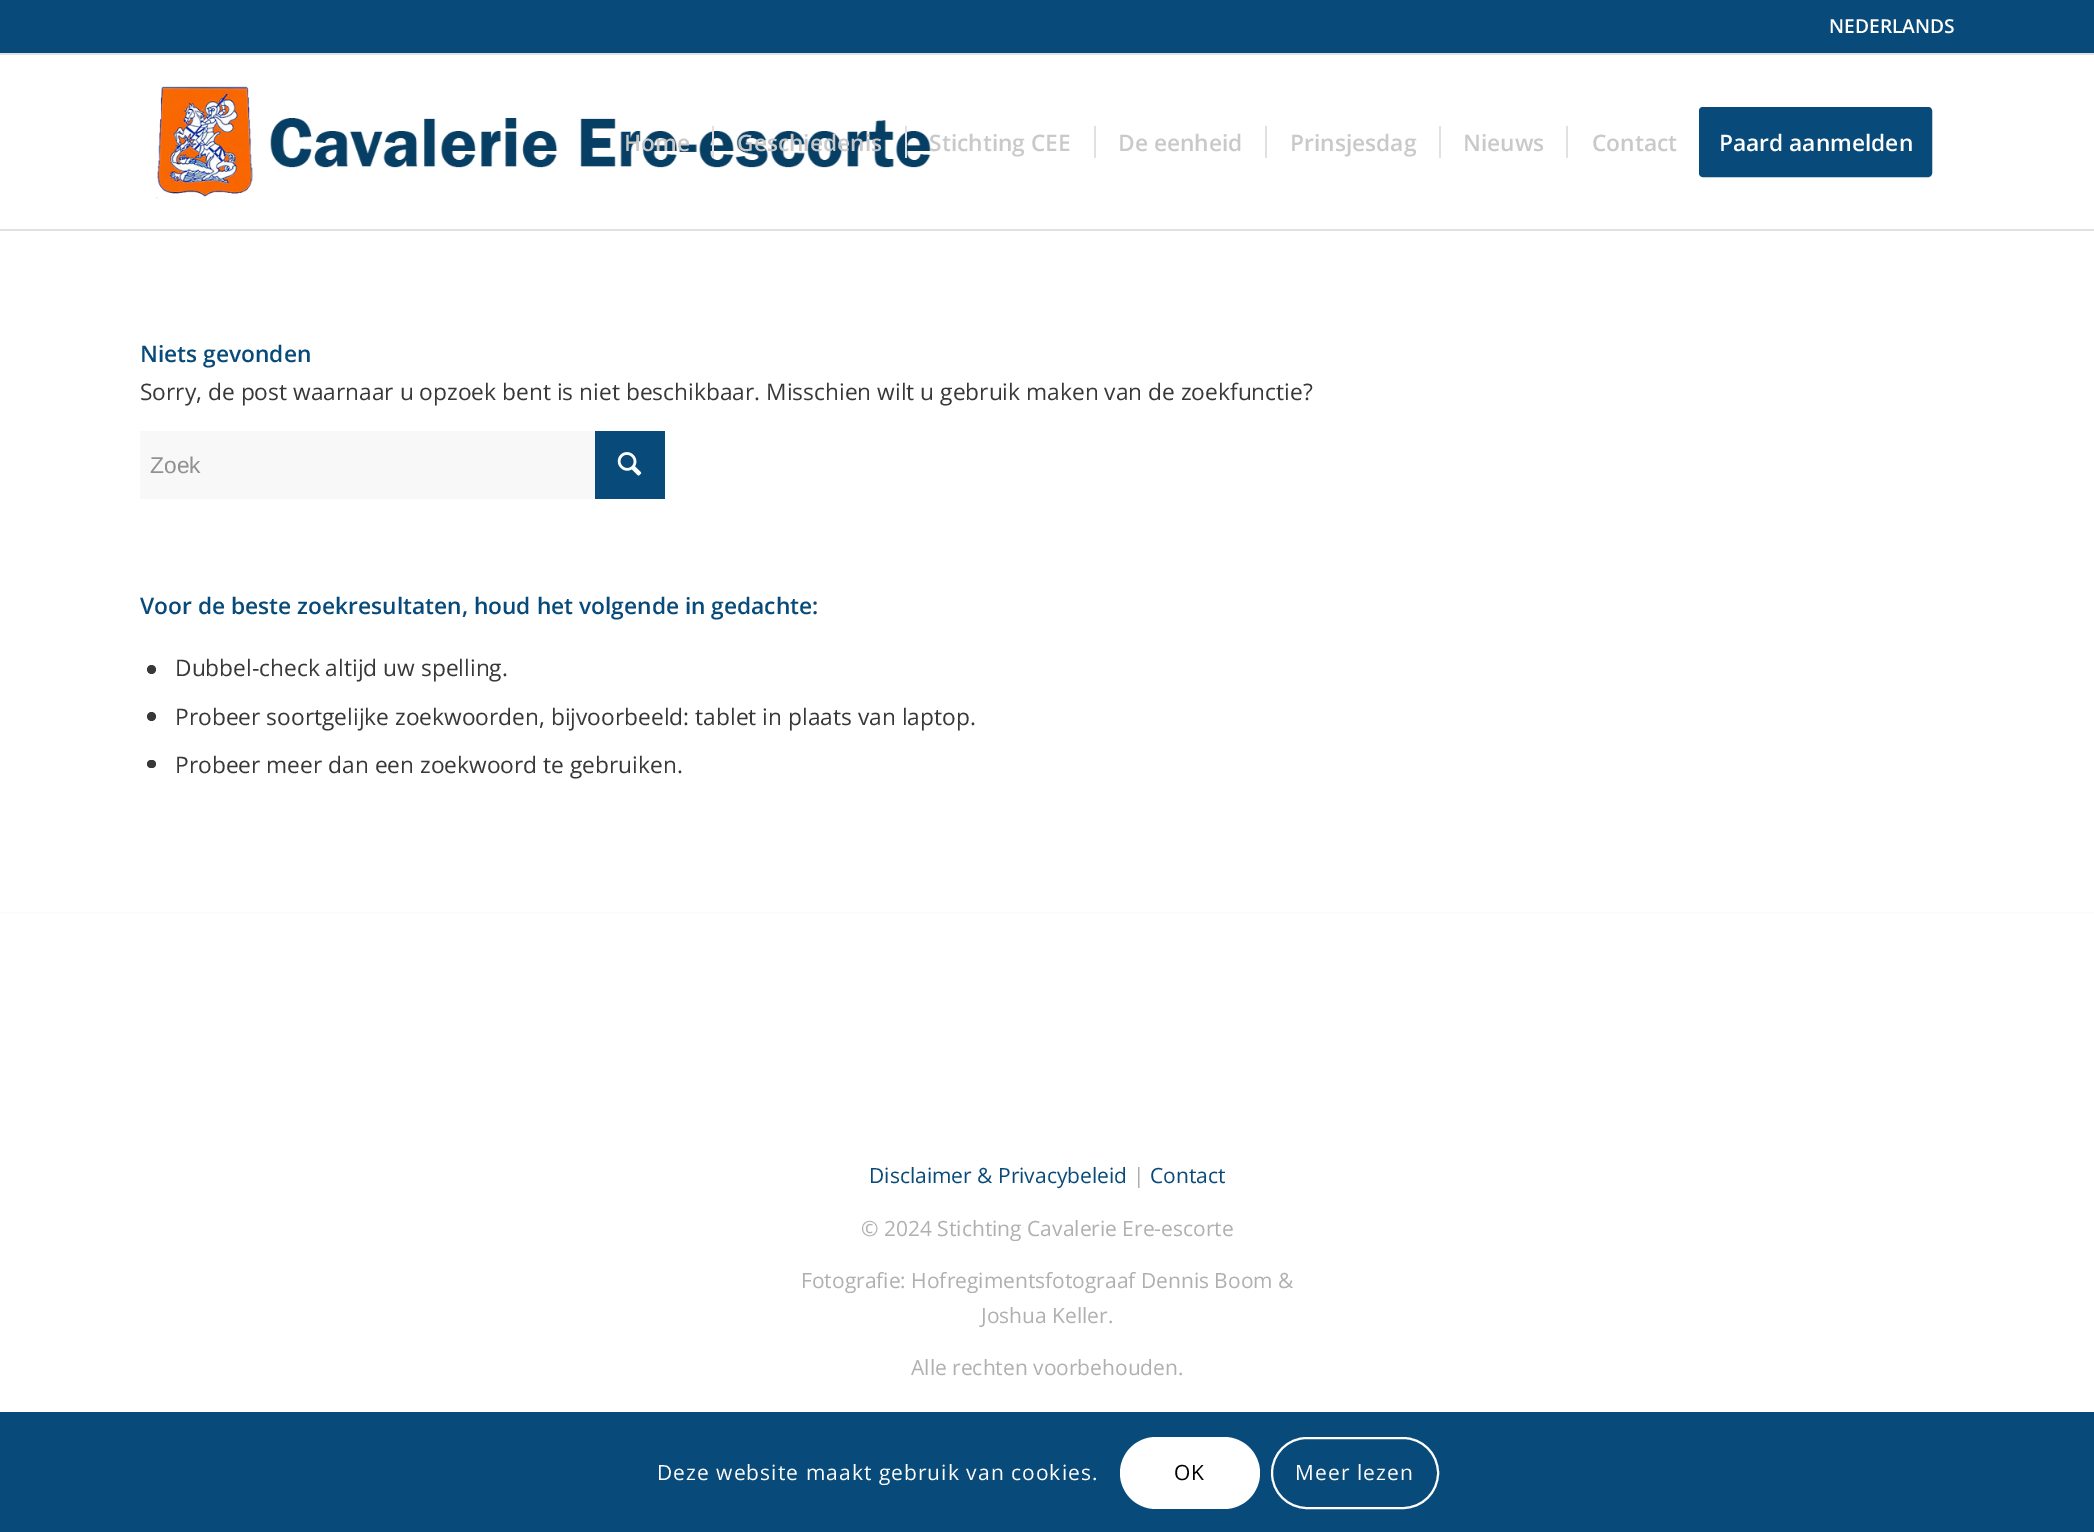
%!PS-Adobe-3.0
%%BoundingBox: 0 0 2094 1532
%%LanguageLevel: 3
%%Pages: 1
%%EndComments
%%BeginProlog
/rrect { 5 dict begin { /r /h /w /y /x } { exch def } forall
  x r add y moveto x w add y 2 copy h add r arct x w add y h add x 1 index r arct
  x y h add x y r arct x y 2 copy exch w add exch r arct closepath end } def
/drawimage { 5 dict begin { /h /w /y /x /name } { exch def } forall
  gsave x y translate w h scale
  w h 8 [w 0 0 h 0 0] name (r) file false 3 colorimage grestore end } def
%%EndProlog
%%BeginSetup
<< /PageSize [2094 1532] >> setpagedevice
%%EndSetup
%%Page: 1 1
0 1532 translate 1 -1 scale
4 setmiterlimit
1 setgray
0 0 2094 1532 rectfill
0.031 0.29 0.475 setrgbcolor
0 0 2094 53 rectfill
0.882 setgray
0 53 2094 2 rectfill
0 229 2094 2 rectfill
(images/1.raw) 156 86 775 113 drawimage
712 126 2 32 rectfill
905 126 2 32 rectfill
1094 126 2 32 rectfill
1265 126 2 32 rectfill
1439 126 2 32 rectfill
1566 126 2 32 rectfill
0.031 0.29 0.475 setrgbcolor
1701 109 229 66 2 rrect gsave fill grestore
4 setlinewidth
stroke
0.973 setgray
140 431 455 68 rectfill
0.031 0.29 0.475 setrgbcolor
595 431 70 68 rectfill
(images/2.raw) 617 452 25 24 drawimage
0.22 setgray
newpath 151.5 669.5 4.5 0 360 arc closepath fill
newpath 151.5 716.5 4.5 0 360 arc closepath fill
147 760 9 8 4 rrect fill
0.988 setgray
0 912 2094 2 rectfill
0.031 0.29 0.475 setrgbcolor
0 1412 2094 120 rectfill
1 setgray
1120 1437 140 72 36 rrect fill
2 setlinewidth
1272 1438 166 70 35 rrect stroke
/OpenSans-SemiBold [19.25 0 0 -19.25 0 0] selectfont
1829 33 moveto (NEDERLANDS) show
/OpenSans-SemiBold [22.75 0 0 -22.75 0 0] selectfont
0.788 setgray
624 151 moveto (Home) show
737 151 moveto (Geschiedenis) show
929 151 moveto (Stichting CEE) show
1118 151 moveto (De eenheid) show
1290 151 moveto (Prinsjesdag) show
1463 151 moveto (Nieuws) show
1592 151 moveto (Contact) show
1 setgray
1719 151 moveto (Paard aanmelden) show
0.031 0.29 0.475 setrgbcolor
140 362 moveto (Niets gevonden) show
/OpenSans-Regular [22.75 0 0 -22.75 0 0] selectfont
0.22 setgray
140 400 moveto (Sorry, de post waarnaar u opzoek bent is niet beschikbaar. Misschien wilt u gebruik maken van de zoekfunctie?) show
/LiberationSans-Regular [22.75 0 0 -22.75 0 0] selectfont
0.569 setgray
150 473 moveto (Zoek) show
/OpenSans-SemiBold [22.75 0 0 -22.75 0 0] selectfont
0.031 0.29 0.475 setrgbcolor
140 614 moveto (Voor de beste zoekresultaten, houd het volgende in gedachte:) show
/OpenSans-Regular [22.75 0 0 -22.75 0 0] selectfont
0.22 setgray
175 676 moveto (Dubbel-check altijd uw spelling.) show
175 725 moveto (Probeer soortgelijke zoekwoorden, bijvoorbeeld: tablet in plaats van laptop.) show
175 773 moveto (Probeer meer dan een zoekwoord te gebruiken.) show
/OpenSans-Regular [21 0 0 -21 0 0] selectfont
0.031 0.29 0.475 setrgbcolor
869 1183 moveto (Disclaimer & Privacybeleid) show
0.69 setgray
1133 1183 moveto (|) show
0.031 0.29 0.475 setrgbcolor
1150 1183 moveto (Contact) show
0.69 setgray
861 1236 moveto (© 2024 Stichting Cavalerie Ere-escorte) show
801 1288 moveto (Fotografie: Hofregimentsfotograaf Dennis Boom &) show
981 1323 moveto (Joshua Keller.) show
911 1375 moveto (Alle rechten voorbehouden.) show
1 setgray
657 1480 moveto 1.05 0 (Deze website maakt gebruik van cookies.) ashow
0 setgray
1174 1480 moveto 1.05 0 (OK) ashow
1 setgray
1295 1480 moveto 1.05 0 (Meer lezen) ashow
showpage
%%EOF
